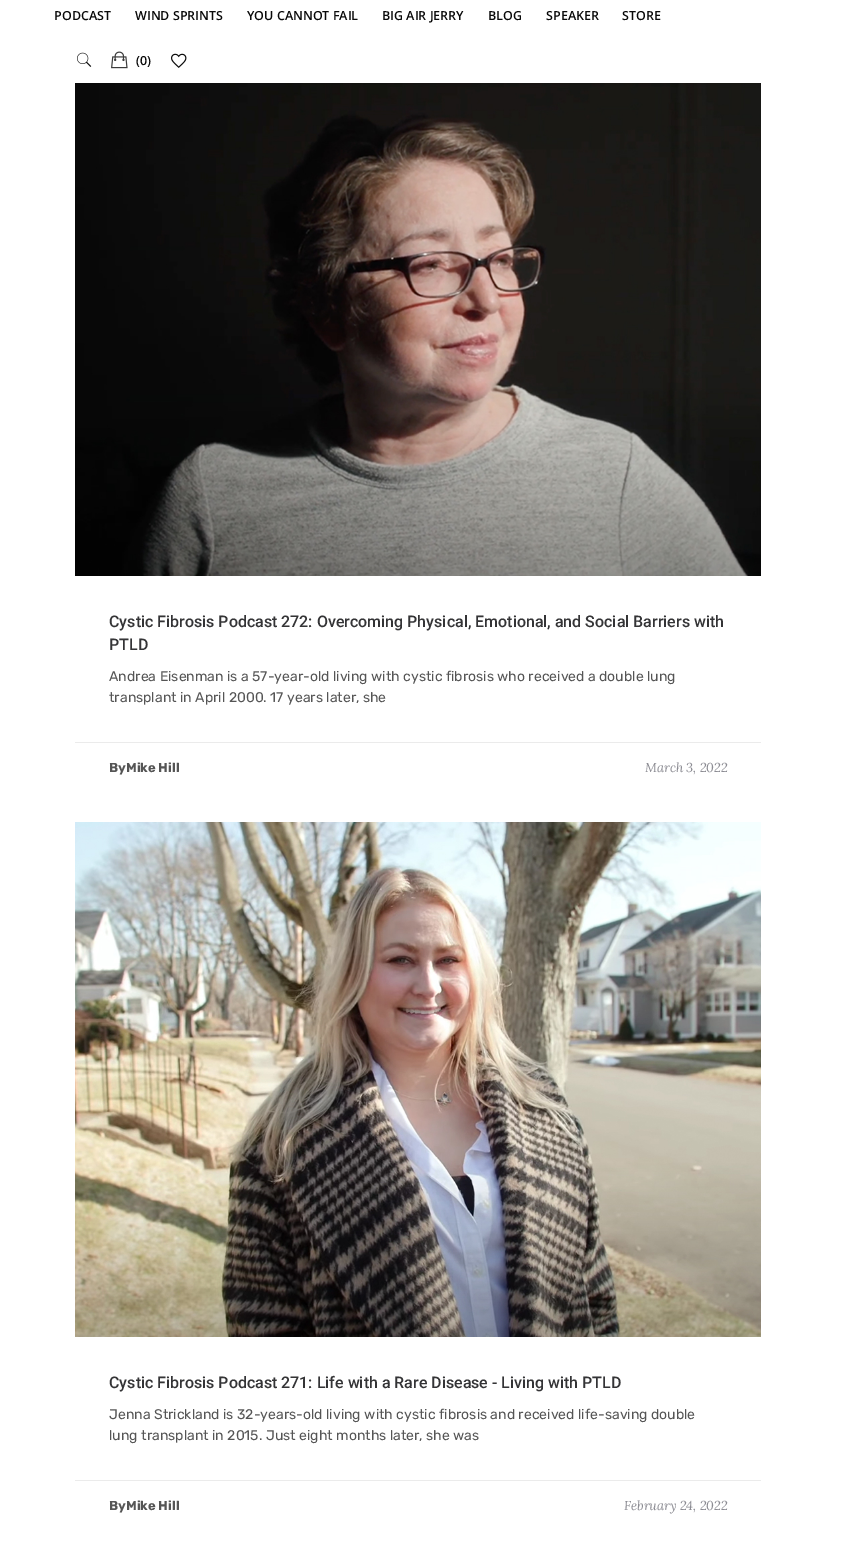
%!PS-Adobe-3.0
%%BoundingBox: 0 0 851 1556
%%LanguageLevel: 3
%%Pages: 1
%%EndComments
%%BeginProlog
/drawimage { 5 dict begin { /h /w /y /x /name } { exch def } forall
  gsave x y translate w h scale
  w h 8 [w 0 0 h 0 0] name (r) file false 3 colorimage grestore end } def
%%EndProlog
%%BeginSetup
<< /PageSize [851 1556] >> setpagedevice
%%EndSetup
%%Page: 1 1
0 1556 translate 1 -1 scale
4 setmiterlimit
1 setgray
0 0 851 1556 rectfill
(images/1.raw) 77 52 15 15 drawimage
(images/2.raw) 111 51 17 18 drawimage
(images/3.raw) 171 53 16 15 drawimage
(images/4.raw) 75 83 686 493 drawimage
0.922 setgray
75 742 686 1 rectfill
(images/5.raw) 75 822 686 515 drawimage
75 1480 686 1 rectfill
/OpenSans-SemiBold [12.5 0 0 -12.5 0 0] selectfont
0.039 setgray
54 20 moveto (PODCAST) show
135 20 moveto (WIND SPRINTS) show
247 20 moveto (YOU CANNOT FAIL) show
382 20 moveto (BIG AIR JERRY) show
488 20 moveto (BLOG) show
546 20 moveto (SPEAKER) show
622 20 moveto (STORE) show
136 65 moveto (\(0\)) show
/Roboto-Medium [16 0 0 -16 0 0] selectfont
0.204 0.204 0.212 setrgbcolor
109 627 moveto (Cystic Fibrosis Podcast 272: Overcoming Physical, Emotional, and Social Barriers with) show
109 650 moveto (PTLD) show
/Rubik-Regular [14 0 0 -14 0 0] selectfont
0.333 setgray
109 681 moveto (Andrea Eisenman is a 57-year-old living with cystic fibrosis who received a double lung) show
109 702 moveto (transplant in April 2000. 17 years later, she) show
/Rubik-Bold [13 0 0 -13 0 0] selectfont
109 772 moveto (ByMike Hill) show
/Lora-Italic [13 0 0 -13 0 0] selectfont
0.549 0.549 0.576 setrgbcolor
645 772 moveto -0.1 0 (March 3, 2022) ashow
/Roboto-Medium [16 0 0 -16 0 0] selectfont
0.204 0.204 0.212 setrgbcolor
109 1388 moveto (Cystic Fibrosis Podcast 271: Life with a Rare Disease - Living with PTLD) show
/Rubik-Regular [14 0 0 -14 0 0] selectfont
0.333 setgray
109 1419 moveto (Jenna Strickland is 32-years-old living with cystic fibrosis and received life-saving double) show
109 1440 moveto (lung transplant in 2015. Just eight months later, she was) show
/Rubik-Bold [13 0 0 -13 0 0] selectfont
109 1510 moveto (ByMike Hill) show
/Lora-Italic [13 0 0 -13 0 0] selectfont
0.549 0.549 0.576 setrgbcolor
624 1510 moveto -0.1 0 (February 24, 2022) ashow
showpage
%%EOF
